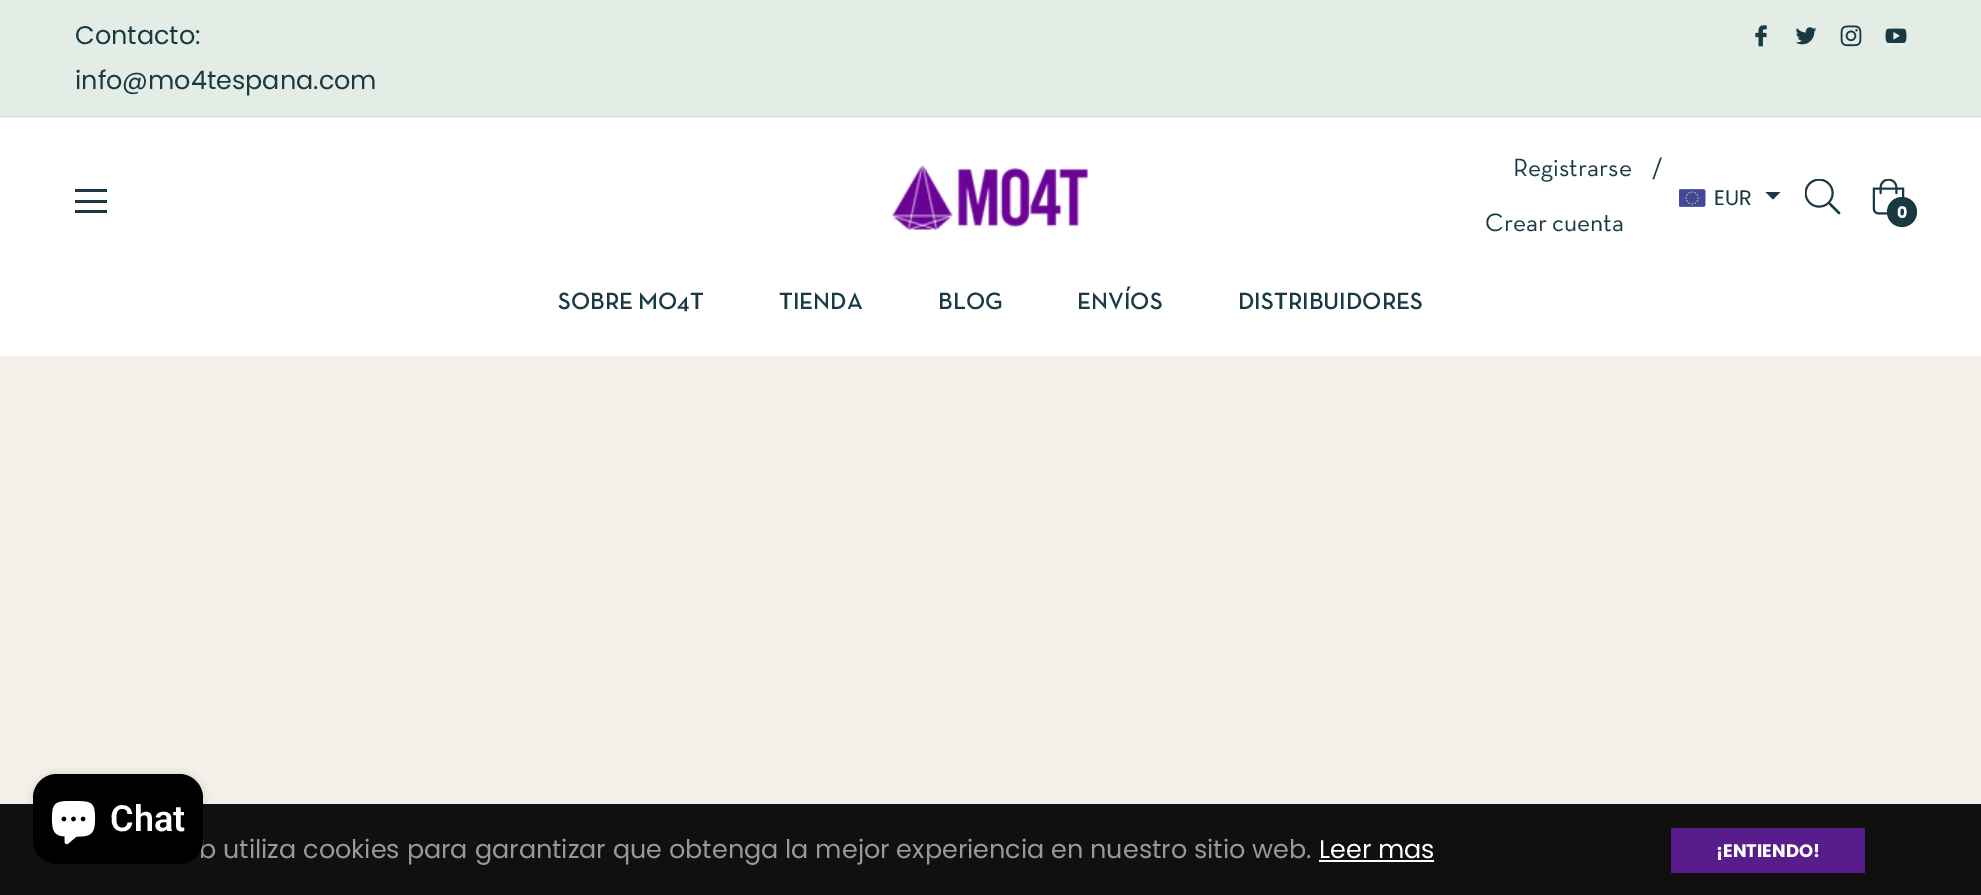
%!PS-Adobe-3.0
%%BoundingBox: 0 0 1981 895
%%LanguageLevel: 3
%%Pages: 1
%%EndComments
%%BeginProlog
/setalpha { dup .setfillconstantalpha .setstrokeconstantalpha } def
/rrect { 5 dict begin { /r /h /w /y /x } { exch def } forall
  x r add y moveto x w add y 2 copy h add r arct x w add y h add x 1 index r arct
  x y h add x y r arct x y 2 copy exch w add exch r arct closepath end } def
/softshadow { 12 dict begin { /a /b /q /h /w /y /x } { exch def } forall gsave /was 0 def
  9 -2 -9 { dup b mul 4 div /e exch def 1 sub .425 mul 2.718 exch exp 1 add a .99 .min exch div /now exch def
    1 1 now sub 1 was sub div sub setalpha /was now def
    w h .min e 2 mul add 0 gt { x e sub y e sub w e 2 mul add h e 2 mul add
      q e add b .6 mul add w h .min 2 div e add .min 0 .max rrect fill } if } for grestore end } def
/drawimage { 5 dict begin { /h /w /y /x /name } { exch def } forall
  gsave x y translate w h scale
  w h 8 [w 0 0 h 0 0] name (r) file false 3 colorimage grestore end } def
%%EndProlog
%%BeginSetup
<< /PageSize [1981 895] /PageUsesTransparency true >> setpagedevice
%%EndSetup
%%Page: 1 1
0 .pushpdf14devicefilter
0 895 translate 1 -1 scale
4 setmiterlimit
1 setgray
0 0 1981 895 rectfill
0.949 setgray
0 117 1981 1 rectfill
0.894 0.925 0.902 setrgbcolor
0 0 1981 116 rectfill
0.851 0.882 0.859 setrgbcolor
0 116 1981 1 rectfill
(images/1.raw) 1755 25 12 22 drawimage
(images/2.raw) 1795 27 22 18 drawimage
(images/3.raw) 1840 25 22 22 drawimage
(images/4.raw) 1885 28 22 15 drawimage
0.098 0.227 0.263 setrgbcolor
75 189 32 3 rectfill
75 200 32 3 rectfill
75 210 32 3 rectfill
(images/5.raw) 892 165 196 65 drawimage
(images/6.raw) 1679 189 27 18 drawimage
newpath 1765.5 192 moveto 1780.5 192 lineto 1773 199.5 lineto closepath fill
(images/7.raw) 1805 179 36 36 drawimage
(images/8.raw) 1872 179 33 36 drawimage
newpath 1902 212 15 0 360 arc closepath fill
0.957 0.937 0.914 setrgbcolor
0 356 1981 448 rectfill
0.063 setgray
0 804 1981 91 rectfill
0 setgray
33 774 170 90 24 4 0.15 softshadow
1 setgray
1319 860 115 2 rectfill
0.349 0.11 0.545 setrgbcolor
1671 828 194 45 rectfill
/Poppins-Regular [25.5 0 0 -25.5 0 0] selectfont
0.098 0.227 0.263 setrgbcolor
75 44 moveto (Contacto:) show
75 89 moveto (info@mo4tespana.com) show
/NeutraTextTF-Regular [25.5 0 0 -25.5 0 0] selectfont
1513 176 moveto (Registrarse) show
1652 176 moveto (/) show
1485 231 moveto (Crear cuenta) show
/Poppins-Regular [21 0 0 -21 0 0] selectfont
1714 205 moveto (EUR) show
/Poppins-Bold [16 0 0 -16 0 0] selectfont
1 setgray
1897 218 moveto (0) show
/NeutraTextTF-Medium [24 0 0 -24 0 0] selectfont
0.098 0.227 0.263 setrgbcolor
558 309 moveto (SOBRE MO4T) show
779 309 moveto (TIENDA) show
938 309 moveto (BLOG) show
1077 309 moveto (ENVÍOS) show
1238 309 moveto (DISTRIBUIDORES) show
/Poppins-Regular [25.5 0 0 -25.5 0 0] selectfont
0.6 setgray
199 858 moveto (b utiliza cookies para garantizar que obtenga la mejor experiencia en nuestro sitio web.) show
0 setgray
33 774 170 90 24 rrect fill
/Roboto-SemiBold [36 0 0 -36 0 0] selectfont
1 setgray
110 831 moveto (Chat) show
(images/9.raw) 51 801 45 44 drawimage
/Poppins-Regular [25.5 0 0 -25.5 0 0] selectfont
1319 858 moveto (Leer mas) show
/Poppins-Bold [18 0 0 -18 0 0] selectfont
1716 857 moveto (¡ENTIENDO!) show
.poppdf14devicefilter showpage
%%EOF
